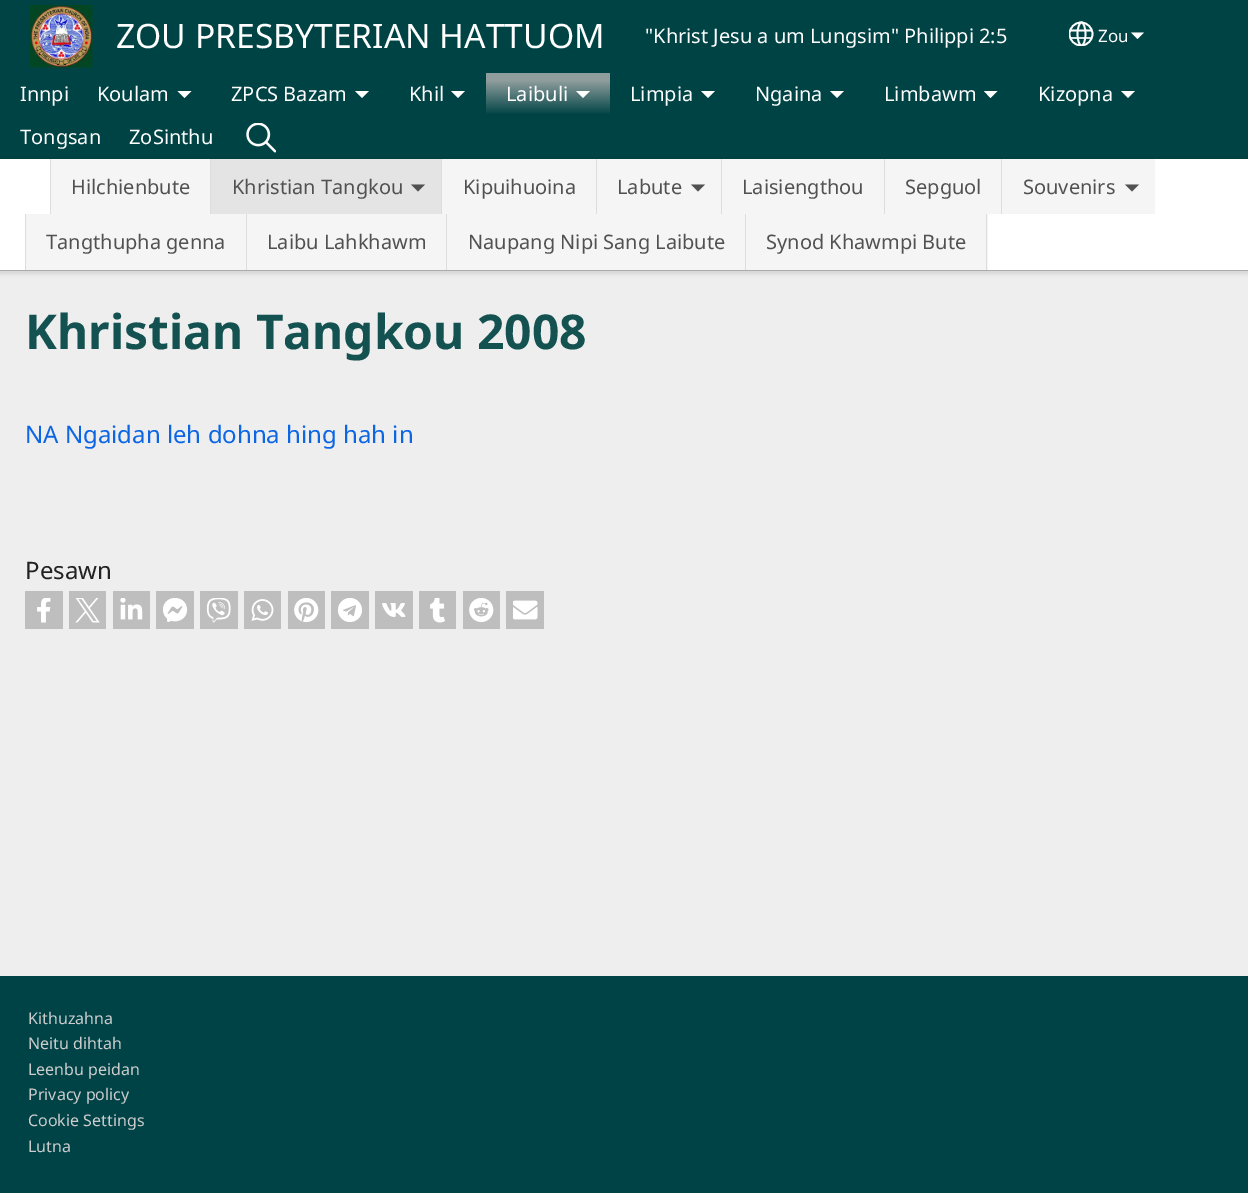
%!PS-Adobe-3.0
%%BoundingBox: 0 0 1248 1193
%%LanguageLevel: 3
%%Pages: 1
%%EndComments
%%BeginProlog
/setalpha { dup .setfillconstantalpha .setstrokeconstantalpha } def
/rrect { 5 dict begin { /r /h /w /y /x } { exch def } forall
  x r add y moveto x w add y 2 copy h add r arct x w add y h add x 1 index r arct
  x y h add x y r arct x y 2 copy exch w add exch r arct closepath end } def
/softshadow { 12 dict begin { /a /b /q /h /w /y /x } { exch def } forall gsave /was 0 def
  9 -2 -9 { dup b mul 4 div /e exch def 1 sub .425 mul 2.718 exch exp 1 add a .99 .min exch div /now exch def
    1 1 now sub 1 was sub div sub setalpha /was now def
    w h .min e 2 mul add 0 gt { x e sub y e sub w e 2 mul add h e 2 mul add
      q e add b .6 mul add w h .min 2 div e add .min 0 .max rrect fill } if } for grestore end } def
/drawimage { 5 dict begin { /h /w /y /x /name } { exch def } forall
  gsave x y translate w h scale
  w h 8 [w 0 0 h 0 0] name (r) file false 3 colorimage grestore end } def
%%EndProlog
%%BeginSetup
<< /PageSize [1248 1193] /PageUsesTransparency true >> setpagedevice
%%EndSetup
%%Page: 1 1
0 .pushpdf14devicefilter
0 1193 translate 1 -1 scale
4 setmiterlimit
0.933 setgray
0 0 1248 1193 rectfill
gsave newpath 0 0 moveto 1248 0 lineto 1248 73 lineto 0 73 lineto closepath clip newpath
<< /ShadingType 2 /ColorSpace /DeviceRGB /Coords [624 0 624 73] /Extend [true true] /Function << /FunctionType 2 /Domain [0 1] /C0 [0 0.263 0.271] /C1 [0 0.263 0.275] /N 1 >> >> shfill grestore
(images/1.raw) 30 5 63 63 drawimage
gsave
1069 14 25 32 rectclip
1 setgray
1.7 setlinewidth
newpath 1081 34 11.5 0 360 arc closepath stroke
newpath 1081.5 22.5 moveto 1083.5 22.5 1085.5 27.5 1085.5 34 curveto 1085.5 40.5 1083.5 45.5 1081.5 45.5 curveto 1079.5 45.5 1077.5 40.5 1077.5 34 curveto 1077.5 27.5 1079.5 22.5 1081.5 22.5 curveto closepath stroke
grestore
1 setgray
1.7 setlinewidth
newpath 1070.5 30.5 moveto 1092 30.5 lineto stroke
0.85 setalpha
1071 37 21 2 rectfill
1 setalpha
newpath 1131 32.5 moveto 1144 32.5 lineto 1137.5 39 lineto closepath fill
0 0.263 0.267 setrgbcolor
0 73 1248 86 rectfill
gsave newpath 486 73 moveto 610 73 lineto 610 114 lineto 486 114 lineto closepath clip newpath
<< /ShadingType 2 /ColorSpace /DeviceRGB /Coords [548 72 548 115] /Extend [true true] /Function << /FunctionType 3 /Domain [0 1] /Functions [<< /FunctionType 2 /Domain [0 1] /C0 [0.561 0.616 0.616] /C1 [0.561 0.616 0.616] /N 1 >> << /FunctionType 2 /Domain [0 1] /C0 [0.561 0.616 0.616] /C1 [0 0.263 0.267] /N 1 >>] /Bounds [0.2] /Encode [0 1 0 1] >> >> shfill grestore
1 1 0.996 setrgbcolor
newpath 576 91 moveto 590 91 lineto 583 98 lineto closepath fill
(images/2.raw) 246 123 30 30 drawimage
0 setgray
-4 159 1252 115 0 2 0.1 softshadow
1 setgray
0 159 1248 111 rectfill
0.667 setgray
0 270 1248 1 rectfill
0.961 setgray
51 159 159 55 rectfill
0.867 setgray
50 159 1 55 rectfill
0.894 setgray
211 159 230 55 rectfill
0.867 setgray
210 159 1 55 rectfill
0.318 setgray
newpath 411 184.5 moveto 425 184.5 lineto 418 191.5 lineto closepath fill
0.961 setgray
442 159 154 55 rectfill
0.867 setgray
441 159 1 55 rectfill
0.961 setgray
597 159 124 55 rectfill
0.867 setgray
596 159 1 55 rectfill
0.318 setgray
newpath 691 184.5 moveto 705 184.5 lineto 698 191.5 lineto closepath fill
0.961 setgray
722 159 162 55 rectfill
0.867 setgray
721 159 1 55 rectfill
0.961 setgray
885 159 116 55 rectfill
0.867 setgray
884 159 1 55 rectfill
0.961 setgray
1002 159 153 55 rectfill
0.867 setgray
1001 159 1 55 rectfill
0.318 setgray
newpath 1125 184.5 moveto 1139 184.5 lineto 1132 191.5 lineto closepath fill
0.961 setgray
26 214 220 56 rectfill
0.867 setgray
25 214 1 56 rectfill
0.961 setgray
247 214 199 56 rectfill
0.867 setgray
246 214 1 56 rectfill
0.961 setgray
447 214 298 56 rectfill
0.867 setgray
446 214 1 56 rectfill
0.961 setgray
746 214 242 56 rectfill
0.867 setgray
986 214 1 56 rectfill
745 214 1 56 rectfill
1 1 0.996 setrgbcolor
newpath 177.5 91 moveto 191.5 91 lineto 184.5 98 lineto closepath fill
newpath 355 91 moveto 369 91 lineto 362 98 lineto closepath fill
newpath 451 91 moveto 465 91 lineto 458 98 lineto closepath fill
newpath 701 91 moveto 715 91 lineto 708 98 lineto closepath fill
newpath 830 91 moveto 844 91 lineto 837 98 lineto closepath fill
newpath 984 91 moveto 997.5 91 lineto 990.5 98 lineto closepath fill
newpath 1121 91 moveto 1135 91 lineto 1128 98 lineto closepath fill
0.745 setgray
25 591 38 38 rectfill
(images/3.raw) 37 598 14 25 drawimage
69 591 37 38 rectfill
(images/4.raw) 75 598 25 25 drawimage
113 591 37 38 rectfill
(images/5.raw) 120 598 23 22 drawimage
156 591 38 38 rectfill
(images/6.raw) 163 598 25 24 drawimage
200 591 38 38 rectfill
(images/7.raw) 206 598 25 25 drawimage
244 591 37 38 rectfill
(images/8.raw) 251 599 23 22 drawimage
288 591 37 38 rectfill
(images/9.raw) 294 598 25 25 drawimage
331 591 38 38 rectfill
(images/10.raw) 338 598 24 24 drawimage
375 591 38 38 rectfill
(images/11.raw) 382 603 24 14 drawimage
419 591 37 38 rectfill
(images/12.raw) 430 598 15 25 drawimage
463 591 37 38 rectfill
(images/13.raw) 469 598 25 25 drawimage
506 591 38 38 rectfill
(images/14.raw) 513 600 25 20 drawimage
0 0.263 0.278 setrgbcolor
0 976 1248 217 rectfill
/NotoSans-Regular [33.6 0 0 -33.6 0 0] selectfont
1 setgray
116 48 moveto (ZOU PRESBYTERIAN HATTUOM) show
/NotoSans-Regular [20 0 0 -20 0 0] selectfont
645 43 moveto ("Khrist Jesu a um Lungsim" Philippi 2:5) show
/NotoSans-Regular [17 0 0 -17 0 0] selectfont
1098 42 moveto (Zou) show
/NotoSans-Regular [20 0 0 -20 0 0] selectfont
506 101 moveto (Laibuli) show
0.318 setgray
71 194 moveto (Hilchienbute) show
232 194 moveto (Khristian Tangkou) show
463 194 moveto (Kipuihuoina) show
617 194 moveto (Labute) show
742 194 moveto (Laisiengthou) show
905 194 moveto (Sepguol) show
1023 194 moveto (Souvenirs) show
46 249 moveto (Tangthupha genna) show
267 249 moveto (Laibu Lahkhawm) show
468 249 moveto (Naupang Nipi Sang Laibute) show
766 249 moveto (Synod Khawmpi Bute) show
1 setgray
20 101 moveto (Innpi) show
97 101 moveto (Koulam) show
231 101 moveto (ZPCS Bazam) show
409 101 moveto (Khil) show
630 101 moveto (Limpia) show
755 101 moveto (Ngaina) show
884 101 moveto (Limbawm) show
1038 101 moveto (Kizopna) show
20 144 moveto (Tongsan) show
129 144 moveto (ZoSinthu) show
/NotoSans-Bold [48 0 0 -48 0 0] selectfont
0.075 0.322 0.314 setrgbcolor
25 349 moveto (Khristian Tangkou 2008) show
/NotoSans-Regular [24 0 0 -24 0 0] selectfont
0.047 0.4 0.894 setrgbcolor
25 443 moveto (NA Ngaidan leh dohna hing hah in) show
0.133 setgray
25 579 moveto (Pesawn) show
/NotoSans-Regular [16 0 0 -16 0 0] selectfont
0.8 setgray
28 1024 moveto (Kithuzahna) show
28 1049 moveto (Neitu dihtah) show
28 1075 moveto (Leenbu peidan) show
28 1100 moveto (Privacy policy) show
28 1126 moveto (Cookie Settings) show
28 1152 moveto (Lutna) show
.poppdf14devicefilter showpage
%%EOF
